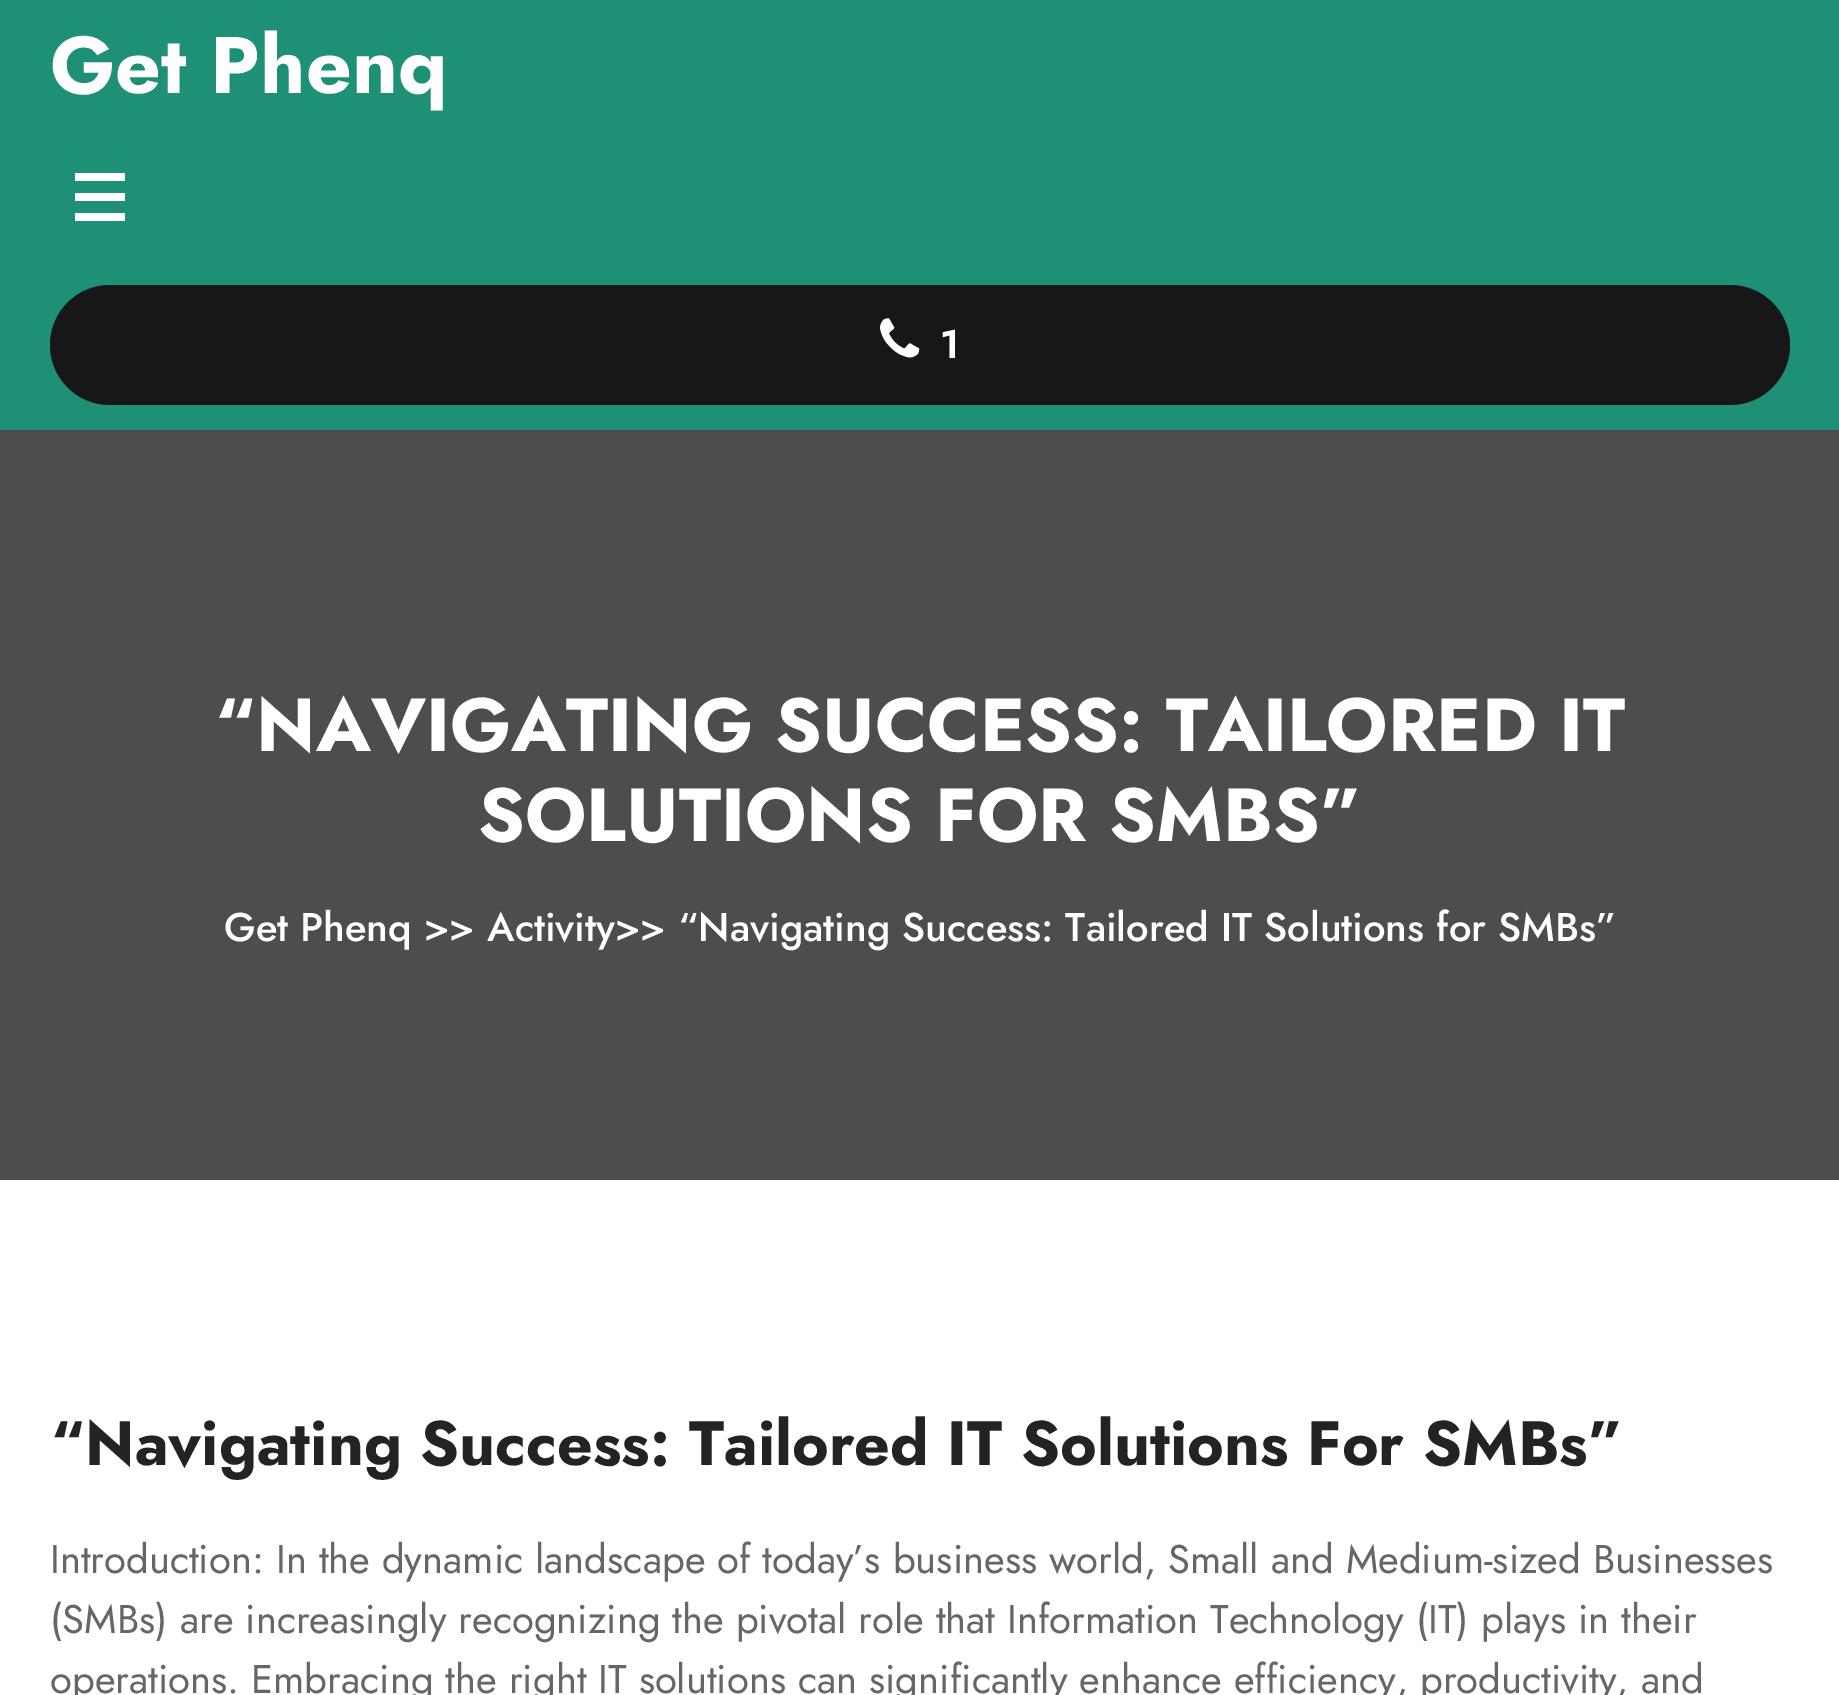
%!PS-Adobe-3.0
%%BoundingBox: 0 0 1839 1695
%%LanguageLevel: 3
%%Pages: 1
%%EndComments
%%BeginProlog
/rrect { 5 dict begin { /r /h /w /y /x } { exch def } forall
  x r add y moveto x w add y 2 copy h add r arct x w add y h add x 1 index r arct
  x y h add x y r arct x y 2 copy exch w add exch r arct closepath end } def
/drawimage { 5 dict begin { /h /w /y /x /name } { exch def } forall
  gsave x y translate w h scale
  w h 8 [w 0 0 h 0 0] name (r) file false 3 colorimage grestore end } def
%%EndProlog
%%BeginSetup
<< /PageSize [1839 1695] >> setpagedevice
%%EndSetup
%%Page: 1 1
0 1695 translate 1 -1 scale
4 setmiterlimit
1 setgray
0 0 1839 1695 rectfill
0.114 0.565 0.459 setrgbcolor
0 0 1839 430 rectfill
1 setgray
75 173 50 8 rectfill
75 193 50 8 rectfill
75 213 50 8 rectfill
0.09 setgray
50 285 1740 120 60 rrect fill
(images/1.raw) 880 318 40 40 drawimage
0.302 setgray
0 430 1839 750 rectfill
/Jost-Bold [80 0 0 -80 0 0] selectfont
1 setgray
50 93 moveto (Get Phenq) show
/Jost-SemiBold [40 0 0 -40 0 0] selectfont
940 358 moveto (1) show
/Jost-Bold [75 0 0 -75 0 0] selectfont
214 751 moveto (“NAVIGATING SUCCESS: TAILORED IT) show
478 841 moveto (SOLUTIONS FOR SMBS”) show
/Jost-Medium [40 0 0 -40 0 0] selectfont
224 941 moveto (Get Phenq >> Activity>> “Navigating Success: Tailored IT Solutions for SMBs”) show
/Jost-Bold [62.5 0 0 -62.5 0 0] selectfont
0.137 setgray
50 1465 moveto (“Navigating Success: Tailored IT Solutions For SMBs”) show
/Jost-Regular [40 0 0 -40 0 0] selectfont
0.4 setgray
50 1573 moveto (Introduction: In the dynamic landscape of today’s business world, Small and Medium-sized Businesses) show
50 1633 moveto (\(SMBs\) are increasingly recognizing the pivotal role that Information Technology \(IT\) plays in their) show
50 1693 moveto (operations. Embracing the right IT solutions can significantly enhance efficiency, productivity, and) show
showpage
%%EOF
